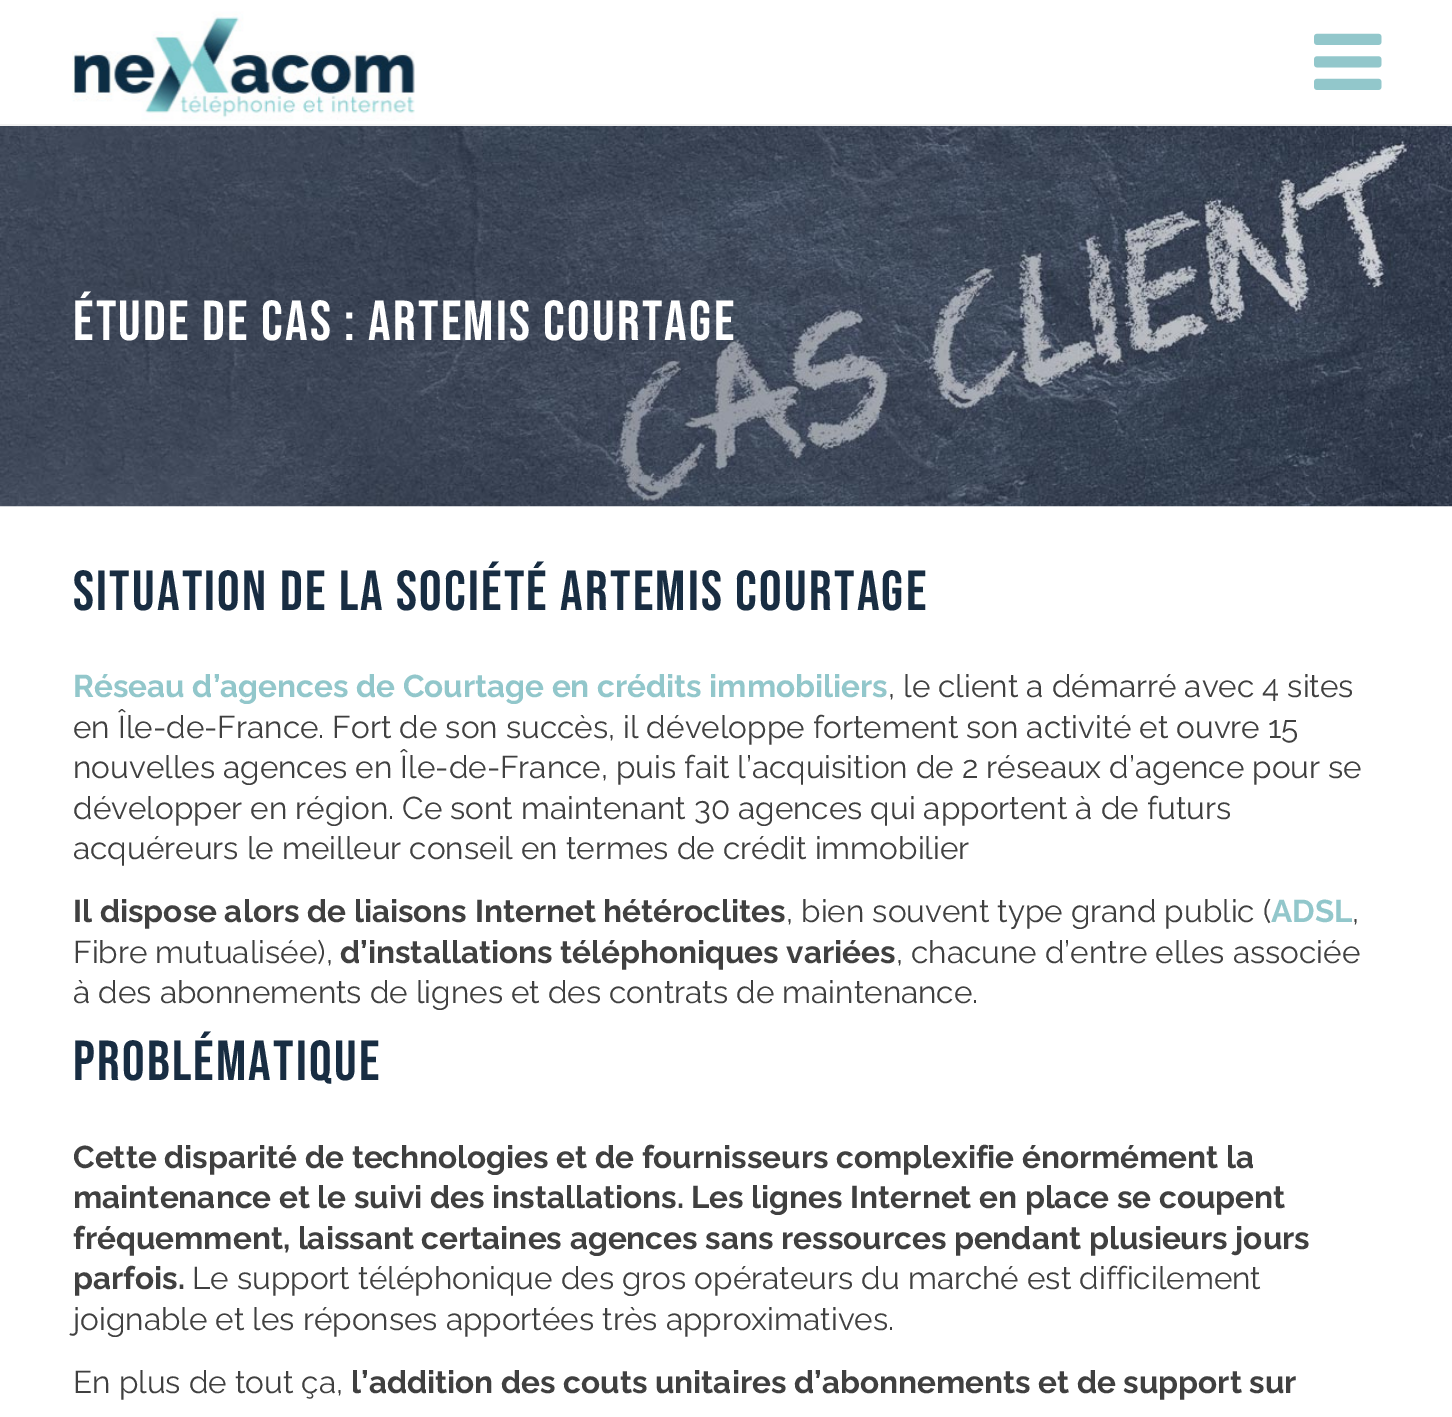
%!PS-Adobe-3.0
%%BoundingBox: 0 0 1452 1417
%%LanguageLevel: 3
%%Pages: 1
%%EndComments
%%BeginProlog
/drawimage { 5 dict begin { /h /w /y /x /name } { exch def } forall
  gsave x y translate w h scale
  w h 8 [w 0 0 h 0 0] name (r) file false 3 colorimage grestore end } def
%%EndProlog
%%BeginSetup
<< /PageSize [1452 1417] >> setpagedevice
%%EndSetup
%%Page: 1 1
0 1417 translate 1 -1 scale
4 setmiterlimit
1 setgray
0 0 1452 1417 rectfill
0.949 setgray
0 124 1452 2 rectfill
(images/1.raw) 72 11 343 110 drawimage
(images/2.raw) 1314 33 68 57 drawimage
(images/3.raw) 0 126 1452 381 drawimage
/BebasNeue-Regular [56.25 0 0 -56.25 0 0] selectfont
1 setgray
73 340 moveto 2.25 0 (ÉTUDE DE CAS : ARTEMIS COURTAGE) ashow
0.094 0.176 0.259 setrgbcolor
73 610 moveto 2.25 0 (SITUATION DE LA SOCIÉTÉ ARTEMIS COURTAGE) ashow
/Raleway-Bold [31.5 0 0 -31.5 0 0] selectfont
0.573 0.78 0.796 setrgbcolor
73 697 moveto (Réseau d’agences de Courtage en crédits immobiliers) show
/Raleway-Regular [31.5 0 0 -31.5 0 0] selectfont
0.251 setgray
888 697 moveto (, le client a démarré avec 4 sites) show
73 738 moveto (en Île-de-France. Fort de son succès, il développe fortement son activité et ouvre 15) show
73 778 moveto (nouvelles agences en Île-de-France, puis fait l’acquisition de 2 réseaux d’agence pour se) show
73 819 moveto (développer en région. Ce sont maintenant 30 agences qui apportent à de futurs) show
73 859 moveto (acquéreurs le meilleur conseil en termes de crédit immobilier) show
/Raleway-Bold [31.5 0 0 -31.5 0 0] selectfont
73 922 moveto (Il dispose alors de liaisons Internet hétéroclites) show
/Raleway-Regular [31.5 0 0 -31.5 0 0] selectfont
786 922 moveto (, bien souvent type grand public \() show
/Raleway-Bold [31.5 0 0 -31.5 0 0] selectfont
0.573 0.78 0.796 setrgbcolor
1271 922 moveto (ADSL) show
/Raleway-Regular [31.5 0 0 -31.5 0 0] selectfont
0.251 setgray
1352 922 moveto (,) show
73 963 moveto (Fibre mutualisée\),) show
/Raleway-Bold [31.5 0 0 -31.5 0 0] selectfont
340 963 moveto (d’installations téléphoniques variées) show
/Raleway-Regular [31.5 0 0 -31.5 0 0] selectfont
896 963 moveto (, chacune d’entre elles associée) show
73 1003 moveto (à des abonnements de lignes et des contrats de maintenance.) show
/BebasNeue-Regular [56.25 0 0 -56.25 0 0] selectfont
0.094 0.176 0.259 setrgbcolor
73 1080 moveto 2.25 0 (PROBLÉMATIQUE) ashow
/Raleway-Bold [31.5 0 0 -31.5 0 0] selectfont
0.251 setgray
73 1168 moveto (Cette disparité de technologies et de fournisseurs complexifie énormément la) show
73 1208 moveto (maintenance et le suivi des installations.) show
691 1208 moveto (Les lignes Internet en place se coupent) show
73 1249 moveto (fréquemment, laissant certaines agences sans ressources pendant plusieurs jours) show
73 1289 moveto (parfois.) show
/Raleway-Regular [31.5 0 0 -31.5 0 0] selectfont
192 1289 moveto (Le support téléphonique des gros opérateurs du marché est difficilement) show
73 1330 moveto (joignable et les réponses apportées très approximatives.) show
73 1393 moveto (En plus de tout ça,) show
/Raleway-Bold [31.5 0 0 -31.5 0 0] selectfont
351 1393 moveto (l’addition des couts unitaires d’abonnements et de support sur) show
showpage
%%EOF
